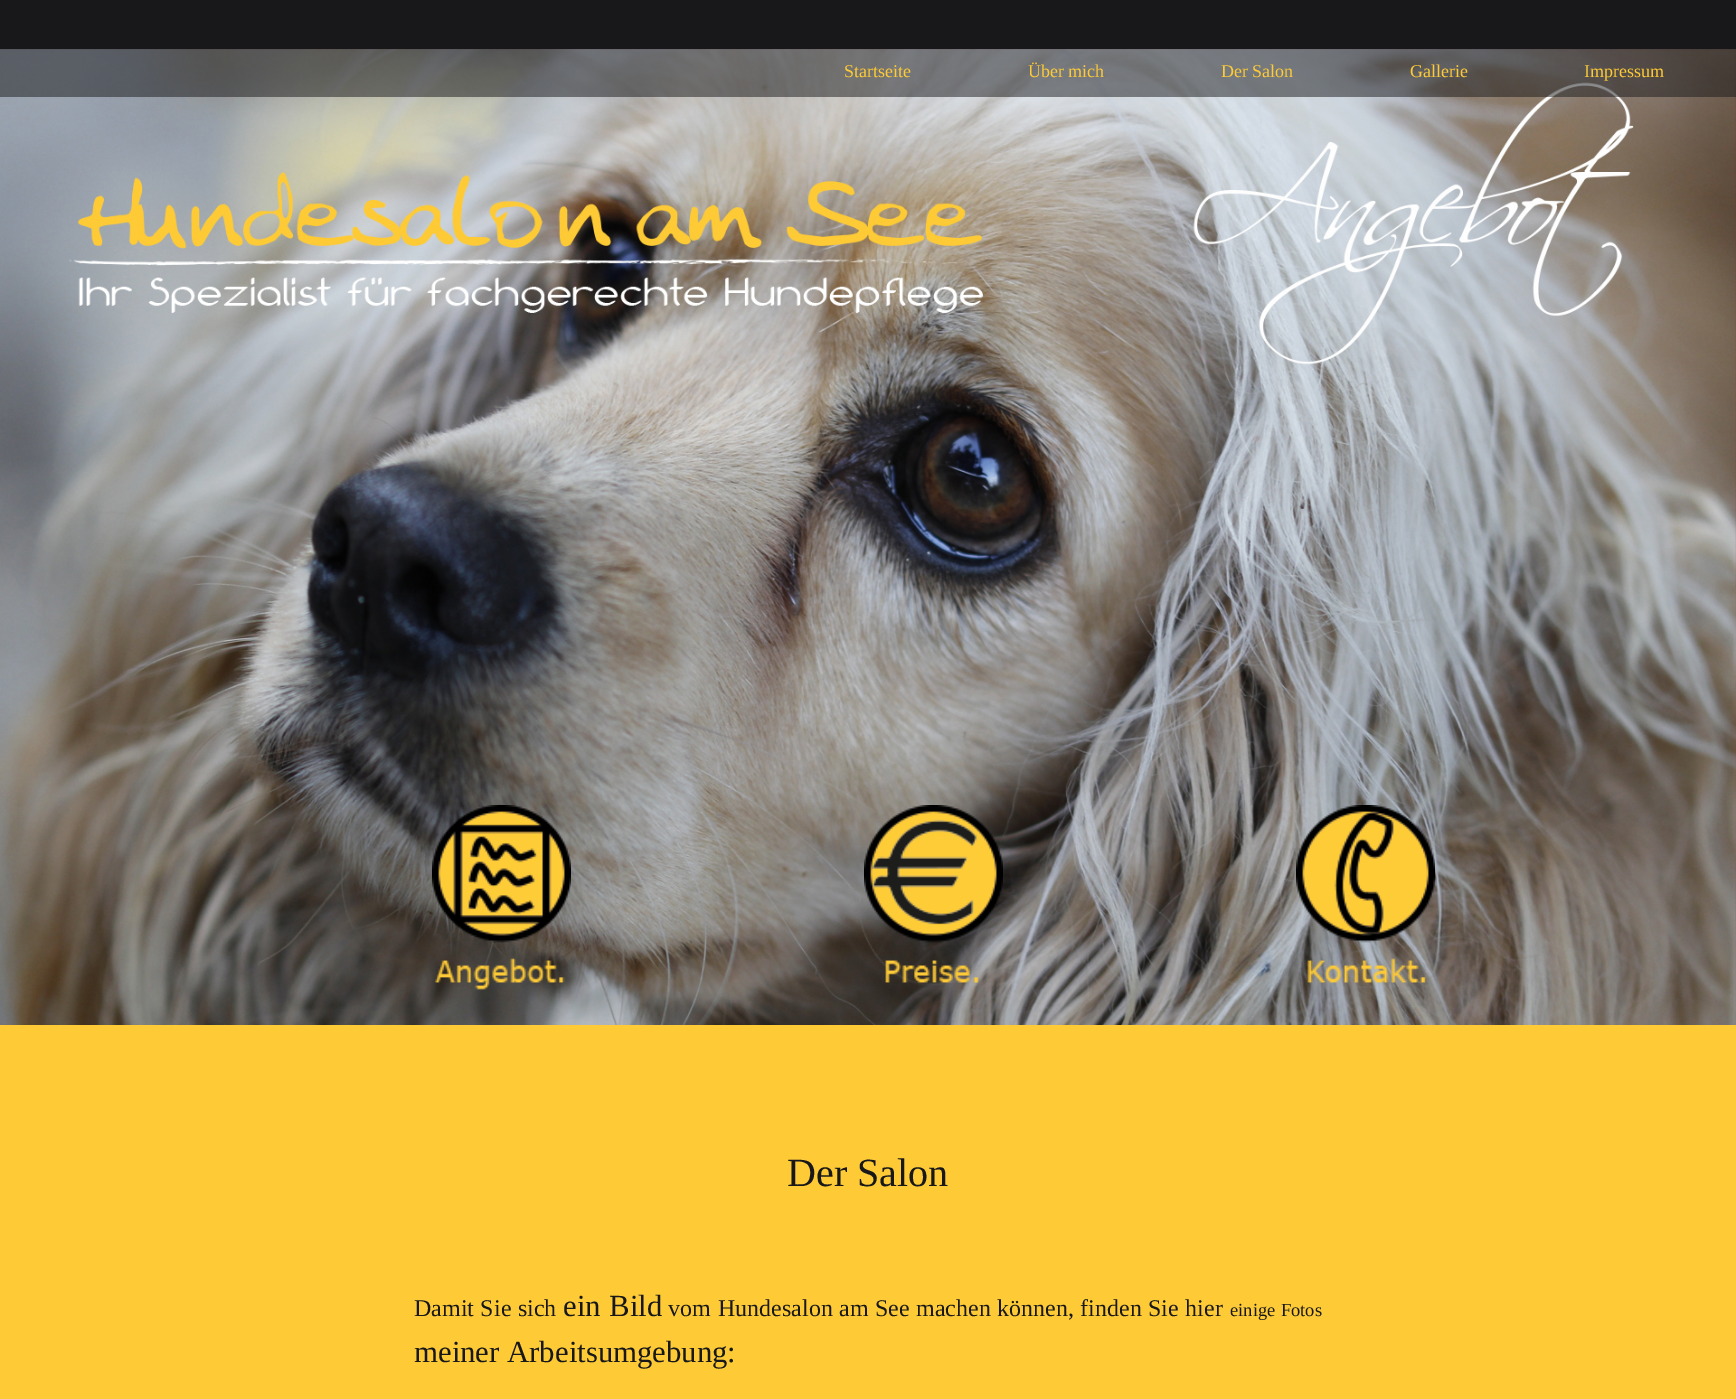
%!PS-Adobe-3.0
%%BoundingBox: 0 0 1736 1399
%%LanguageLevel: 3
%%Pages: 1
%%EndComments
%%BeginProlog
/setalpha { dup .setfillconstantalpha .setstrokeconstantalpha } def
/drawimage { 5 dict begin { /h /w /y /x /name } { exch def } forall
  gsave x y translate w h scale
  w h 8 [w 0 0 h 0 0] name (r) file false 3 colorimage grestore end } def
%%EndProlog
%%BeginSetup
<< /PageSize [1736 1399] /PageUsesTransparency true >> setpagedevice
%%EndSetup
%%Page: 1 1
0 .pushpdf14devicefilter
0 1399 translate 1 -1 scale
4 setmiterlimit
0.996 0.796 0.212 setrgbcolor
0 0 1736 1399 rectfill
0.094 0.094 0.102 setrgbcolor
0 0 1736 49 rectfill
(images/1.raw) 0 49 1736 976 drawimage
0.5 setalpha
0 49 1736 48 rectfill
1 setalpha
(images/2.raw) 432 805 139 185 drawimage
(images/3.raw) 864 805 139 178 drawimage
(images/4.raw) 1296 805 139 178 drawimage
/LiberationSerif-Regular [18 0 0 -18 0 0] selectfont
0.996 0.796 0.212 setrgbcolor
844 77 moveto (Startseite) show
1028 77 moveto (Über mich) show
1221 77 moveto (Der Salon) show
1410 77 moveto (Gallerie) show
1584 77 moveto (Impressum) show
/LiberationSerif-Regular [40 0 0 -40 0 0] selectfont
0.094 0.094 0.102 setrgbcolor
787 1186 moveto (Der Salon) show
/LiberationSerif-Regular [24 0 0 -24 0 0] selectfont
414 1316 moveto 0.5 0 32 (Damit Sie sich) widthshow
/LiberationSerif-Regular [30.75 0 0 -30.75 0 0] selectfont
563 1316 moveto 1 0 32 (ein Bild) widthshow
/LiberationSerif-Regular [24 0 0 -24 0 0] selectfont
668 1316 moveto (vom) show
718 1316 moveto 0.5 0 32 (Hundesalon am See) widthshow
916 1316 moveto 0.5 0 32 (machen können, finden Sie hier) widthshow
/LiberationSerif-Regular [18.5 0 0 -18.5 0 0] selectfont
1230 1316 moveto 1 0 32 (einige Fotos) widthshow
/LiberationSerif-Regular [30.75 0 0 -30.75 0 0] selectfont
414 1362 moveto (meiner Arbeitsumgebung:) show
.poppdf14devicefilter showpage
%%EOF
